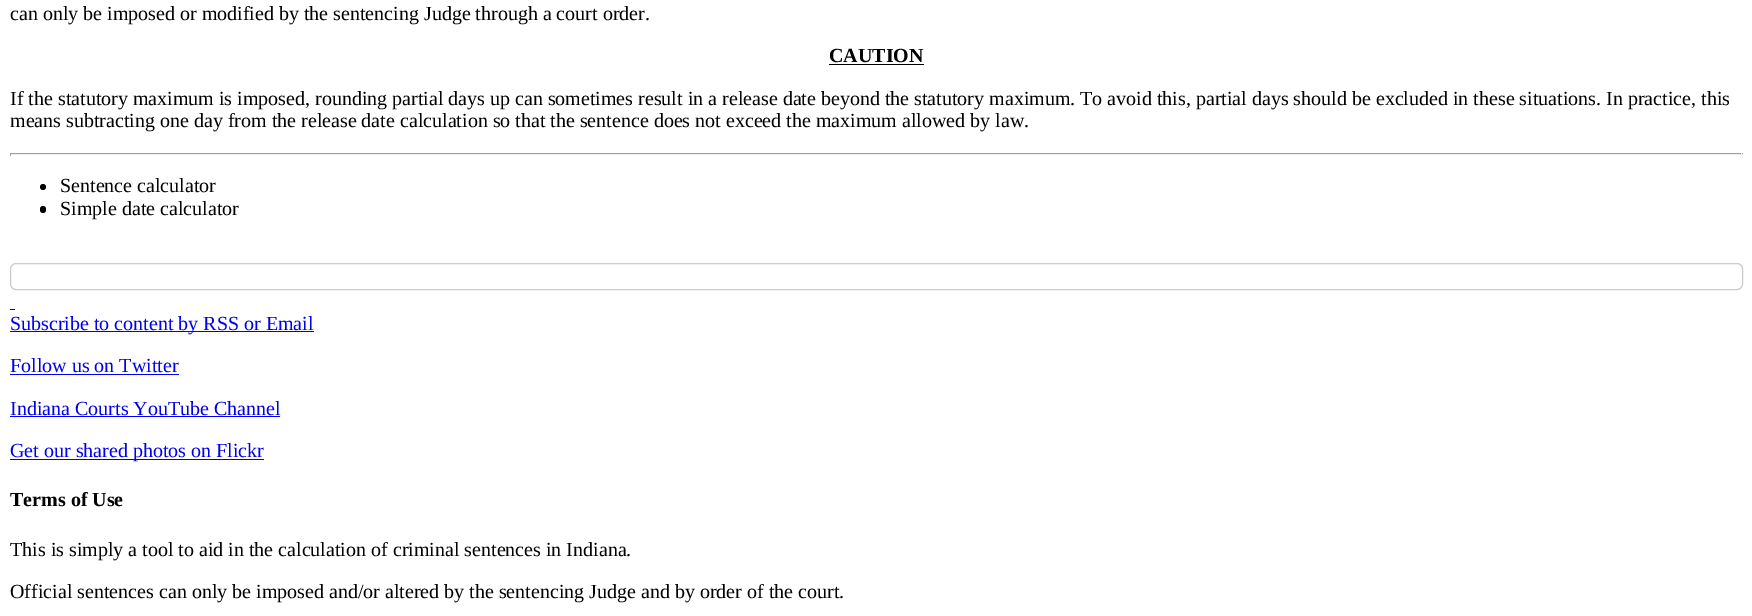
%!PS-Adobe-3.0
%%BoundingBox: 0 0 1752 616
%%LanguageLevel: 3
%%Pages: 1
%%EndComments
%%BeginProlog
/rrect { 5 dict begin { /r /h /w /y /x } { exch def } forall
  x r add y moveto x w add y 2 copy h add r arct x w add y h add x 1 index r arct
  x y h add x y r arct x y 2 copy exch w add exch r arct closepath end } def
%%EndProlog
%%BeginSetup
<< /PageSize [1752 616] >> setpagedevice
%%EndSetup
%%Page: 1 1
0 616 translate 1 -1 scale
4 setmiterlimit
1 setgray
0 0 1752 616 rectfill
0 setgray
829 64 95 1 rectfill
0.624 setgray
10 153 1733 1 rectfill
0.933 setgray
1741 153 1 3 rectfill
10 154 1733 1 rectfill
0.624 setgray
10 153 1 3 rectfill
0 setgray
newpath 43 187 3 0 360 arc closepath fill
40 206 6 7 3 rrect fill
0.8 setgray
10.5 263.5 1732 26 5.5 rrect stroke
0 0 0.933 setrgbcolor
10 309 5 1 rectfill
10 331 304 1 rectfill
10 374 169 1 rectfill
10 416 270 1 rectfill
10 459 254 1 rectfill
/LiberationSerif-Regular [20 0 0 -20 0 0] selectfont
0 setgray
10 20 moveto (can only be imposed or modified by the sentencing Judge through a court order.) show
/LiberationSerif-Bold [20 0 0 -20 0 0] selectfont
829 62 moveto (CAUTION) show
/LiberationSerif-Regular [20 0 0 -20 0 0] selectfont
10 105 moveto (If the statutory maximum is imposed, rounding partial days up can sometimes result in a release date beyond the statutory maximum. To avoid this, partial days should be excluded in these situations. In practice, this) show
10 127 moveto (means subtracting one day from the release date calculation so that the sentence does not exceed the maximum allowed by law.) show
60 192 moveto (Sentence calculator) show
60 215 moveto (Simple date calculator) show
0 0 0.933 setrgbcolor
10 330 moveto (Subscribe to content by RSS or Email) show
10 372 moveto (Follow us on Twitter) show
10 415 moveto (Indiana Courts YouTube Channel) show
10 457 moveto (Get our shared photos on Flickr) show
/LiberationSerif-Bold [20 0 0 -20 0 0] selectfont
0 setgray
10 506 moveto (Terms of Use) show
/LiberationSerif-Regular [20 0 0 -20 0 0] selectfont
10 556 moveto (This is simply a tool to aid in the calculation of criminal sentences in Indiana.) show
10 598 moveto (Official sentences can only be imposed and/or altered by the sentencing Judge and by order of the court.) show
showpage
%%EOF
